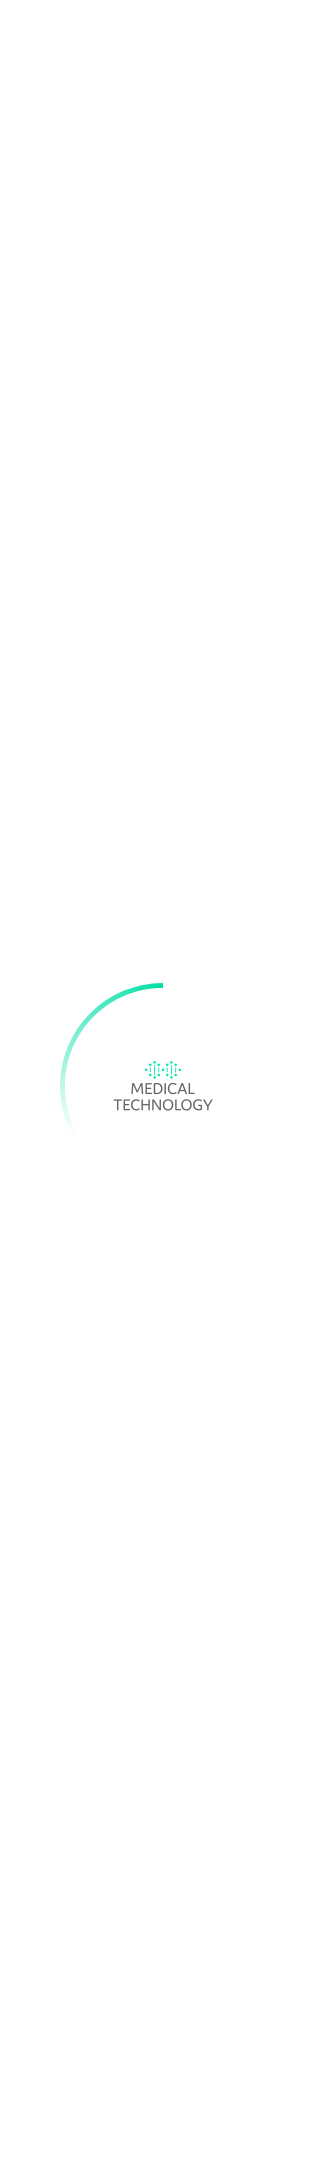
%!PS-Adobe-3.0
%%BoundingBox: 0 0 325 2171
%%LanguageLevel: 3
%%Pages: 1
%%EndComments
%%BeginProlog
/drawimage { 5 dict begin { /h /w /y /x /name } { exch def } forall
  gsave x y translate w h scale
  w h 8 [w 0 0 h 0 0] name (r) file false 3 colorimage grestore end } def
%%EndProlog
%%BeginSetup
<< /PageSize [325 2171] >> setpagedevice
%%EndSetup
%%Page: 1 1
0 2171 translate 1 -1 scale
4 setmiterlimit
1 setgray
0 0 325 2171 rectfill
(images/1.raw) 60 983 103 150 drawimage
newpath 163 1086 98 0 360 arc closepath fill
(images/2.raw) 113 1061 100 50 drawimage
showpage
%%EOF
